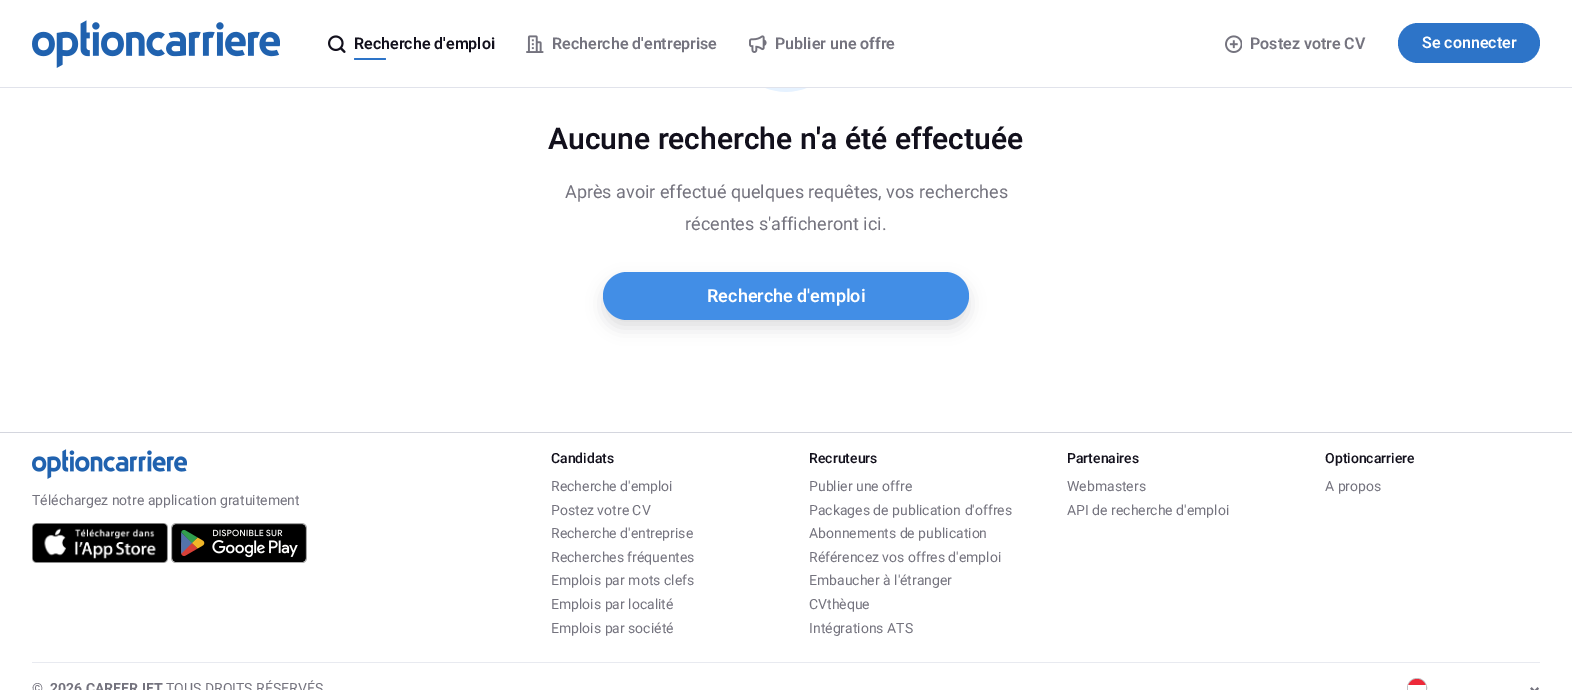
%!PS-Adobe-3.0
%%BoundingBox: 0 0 1572 690
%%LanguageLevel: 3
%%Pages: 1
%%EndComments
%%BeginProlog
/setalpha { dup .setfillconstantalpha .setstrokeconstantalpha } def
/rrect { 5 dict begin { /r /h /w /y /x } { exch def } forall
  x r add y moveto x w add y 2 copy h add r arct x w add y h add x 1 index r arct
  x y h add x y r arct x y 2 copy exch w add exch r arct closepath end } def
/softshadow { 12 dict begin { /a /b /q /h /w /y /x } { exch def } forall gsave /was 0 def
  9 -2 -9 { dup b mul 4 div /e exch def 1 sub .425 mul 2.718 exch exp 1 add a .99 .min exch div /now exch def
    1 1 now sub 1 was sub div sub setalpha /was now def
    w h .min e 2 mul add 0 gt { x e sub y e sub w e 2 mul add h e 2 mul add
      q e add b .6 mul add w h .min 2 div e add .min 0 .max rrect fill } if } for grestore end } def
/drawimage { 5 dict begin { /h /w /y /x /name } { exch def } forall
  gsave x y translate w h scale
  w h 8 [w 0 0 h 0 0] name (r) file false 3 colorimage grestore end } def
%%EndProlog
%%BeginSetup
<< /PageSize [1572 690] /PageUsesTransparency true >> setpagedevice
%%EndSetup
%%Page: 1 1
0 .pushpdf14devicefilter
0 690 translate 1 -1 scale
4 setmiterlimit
1 setgray
0 0 1572 690 rectfill
0.882 0.89 0.922 setrgbcolor
0 87 1572 1 rectfill
(images/1.raw) 32 20 248 48 drawimage
(images/2.raw) 328 35 18 18 drawimage
0.176 0.455 0.784 setrgbcolor
354 58 32 2 1 rrect fill
(images/3.raw) 526 35 18 18 drawimage
(images/4.raw) 749 35 18 18 drawimage
(images/5.raw) 1225 35 17 18 drawimage
1398 23 142 40 20 rrect fill
(images/6.raw) 765 88 42 4 drawimage
0.071 0.063 0.11 setrgbcolor
603 280 366 48 24 8 0.14 softshadow
0.259 0.557 0.902 setrgbcolor
603 272 366 48 24 rrect fill
0.831 0.839 0.871 setrgbcolor
0 432 1572 1 rectfill
(images/7.raw) 32 449 155 30 drawimage
(images/8.raw) 32 523 136 40 drawimage
(images/9.raw) 171 523 136 40 drawimage
0.91 0.918 0.941 setrgbcolor
32 662 1508 1 rectfill
0.753 0.753 0.769 setrgbcolor
newpath 1417 688 9.5 0 360 arc closepath stroke
0.929 0.161 0.224 setrgbcolor
newpath 1417 679 moveto 1422 679 1426 683 1426 688 curveto 1408 688 lineto 1408 683 1412 679 1417 679 curveto closepath fill
gsave
1408 679 18 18 9 rrect clip newpath
1 setgray
1408 685 18 5 rectfill
grestore
(images/10.raw) 1530 687 9 3 drawimage
/Roboto-SemiBold [16 0 0 -16 0 0] selectfont
0.071 0.063 0.11 setrgbcolor
354 49 moveto (Recherche d'emploi) show
0.455 0.451 0.494 setrgbcolor
552 49 moveto (Recherche d'entreprise) show
775 49 moveto (Publier une offre) show
1250 49 moveto (Postez votre CV) show
1 setgray
1422 48 moveto (Se connecter) show
/Roboto-SemiBold [30 0 0 -30 0 0] selectfont
0.071 0.063 0.11 setrgbcolor
548 149 moveto (Aucune recherche n'a été effectuée) show
/Roboto-Regular [18 0 0 -18 0 0] selectfont
0.455 0.451 0.494 setrgbcolor
565 198 moveto (Après avoir effectué quelques requêtes, vos recherches) show
685 230 moveto (récentes s'afficheront ici.) show
/Roboto-SemiBold [18 0 0 -18 0 0] selectfont
1 setgray
707 302 moveto (Recherche d'emploi) show
/Roboto-Regular [14 0 0 -14 0 0] selectfont
0.455 0.451 0.494 setrgbcolor
32 505 moveto (Téléchargez notre application gratuitement) show
/Roboto-Medium [14 0 0 -14 0 0] selectfont
0.071 0.063 0.11 setrgbcolor
551 463 moveto (Candidats) show
/Roboto-Regular [14 0 0 -14 0 0] selectfont
0.455 0.451 0.494 setrgbcolor
551 491 moveto (Recherche d'emploi) show
551 515 moveto (Postez votre CV) show
551 538 moveto (Recherche d'entreprise) show
551 562 moveto (Recherches fréquentes) show
551 585 moveto (Emplois par mots clefs) show
551 609 moveto (Emplois par localité) show
551 633 moveto (Emplois par société) show
/Roboto-Medium [14 0 0 -14 0 0] selectfont
0.071 0.063 0.11 setrgbcolor
809 463 moveto (Recruteurs) show
/Roboto-Regular [14 0 0 -14 0 0] selectfont
0.455 0.451 0.494 setrgbcolor
809 491 moveto (Publier une offre) show
809 515 moveto (Packages de publication d'offres) show
809 538 moveto (Abonnements de publication) show
809 562 moveto (Référencez vos offres d'emploi) show
809 585 moveto (Embaucher à l'étranger) show
809 609 moveto (CVthèque) show
809 633 moveto (Intégrations ATS) show
/Roboto-Medium [14 0 0 -14 0 0] selectfont
0.071 0.063 0.11 setrgbcolor
1067 463 moveto (Partenaires) show
/Roboto-Regular [14 0 0 -14 0 0] selectfont
0.455 0.451 0.494 setrgbcolor
1067 491 moveto (Webmasters) show
1067 515 moveto (API de recherche d'emploi) show
/Roboto-Medium [14 0 0 -14 0 0] selectfont
0.071 0.063 0.11 setrgbcolor
1325 463 moveto (Optioncarriere) show
/Roboto-Regular [14 0 0 -14 0 0] selectfont
0.455 0.451 0.494 setrgbcolor
1325 491 moveto (A propos) show
32 693 moveto (©) show
/Roboto-Bold [14 0 0 -14 0 0] selectfont
50 693 moveto (2026 CAREERJET) show
/Roboto-Regular [14 0 0 -14 0 0] selectfont
166 693 moveto (TOUS DROITS RÉSERVÉS) show
.poppdf14devicefilter showpage
%%EOF
